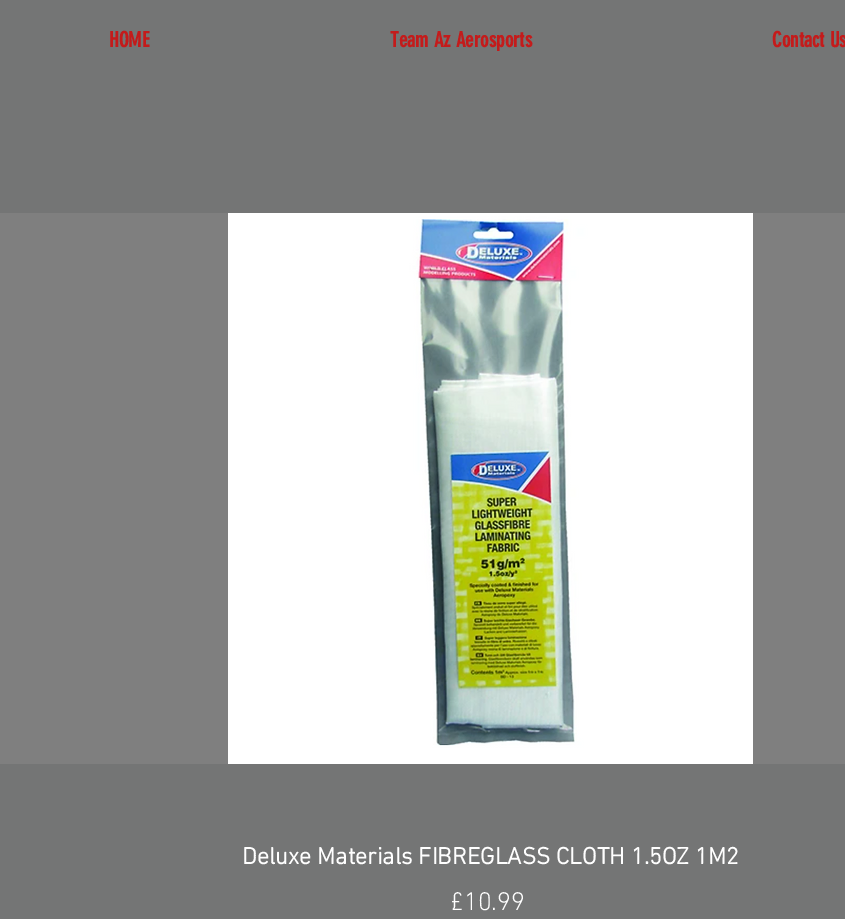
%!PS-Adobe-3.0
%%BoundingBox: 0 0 845 919
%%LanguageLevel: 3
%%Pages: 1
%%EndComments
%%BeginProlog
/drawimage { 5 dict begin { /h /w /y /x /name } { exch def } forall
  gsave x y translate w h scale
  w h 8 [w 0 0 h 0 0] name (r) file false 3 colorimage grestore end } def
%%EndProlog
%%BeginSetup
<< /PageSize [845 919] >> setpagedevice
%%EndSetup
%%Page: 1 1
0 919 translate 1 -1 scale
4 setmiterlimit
0.455 0.459 0.459 setrgbcolor
0 0 845 919 rectfill
0.498 setgray
0 213 845 551 rectfill
(images/1.raw) 228 213 525 551 drawimage
/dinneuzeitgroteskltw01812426-Bold [21 0 0 -21 0 0] selectfont
0.769 0.106 0.106 setrgbcolor
109 47 moveto (HOME) show
390 47 moveto (Team Az Aerosports) show
772 47 moveto (Contact Us) show
/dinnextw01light-Bold [24 0 0 -24 0 0] selectfont
1 setgray
242 864 moveto (Deluxe Materials FIBREGLASS CLOTH 1.5OZ 1M2) show
/dinnextw01light-Light [26 0 0 -26 0 0] selectfont
450 910 moveto (£10.99) show
showpage
%%EOF
